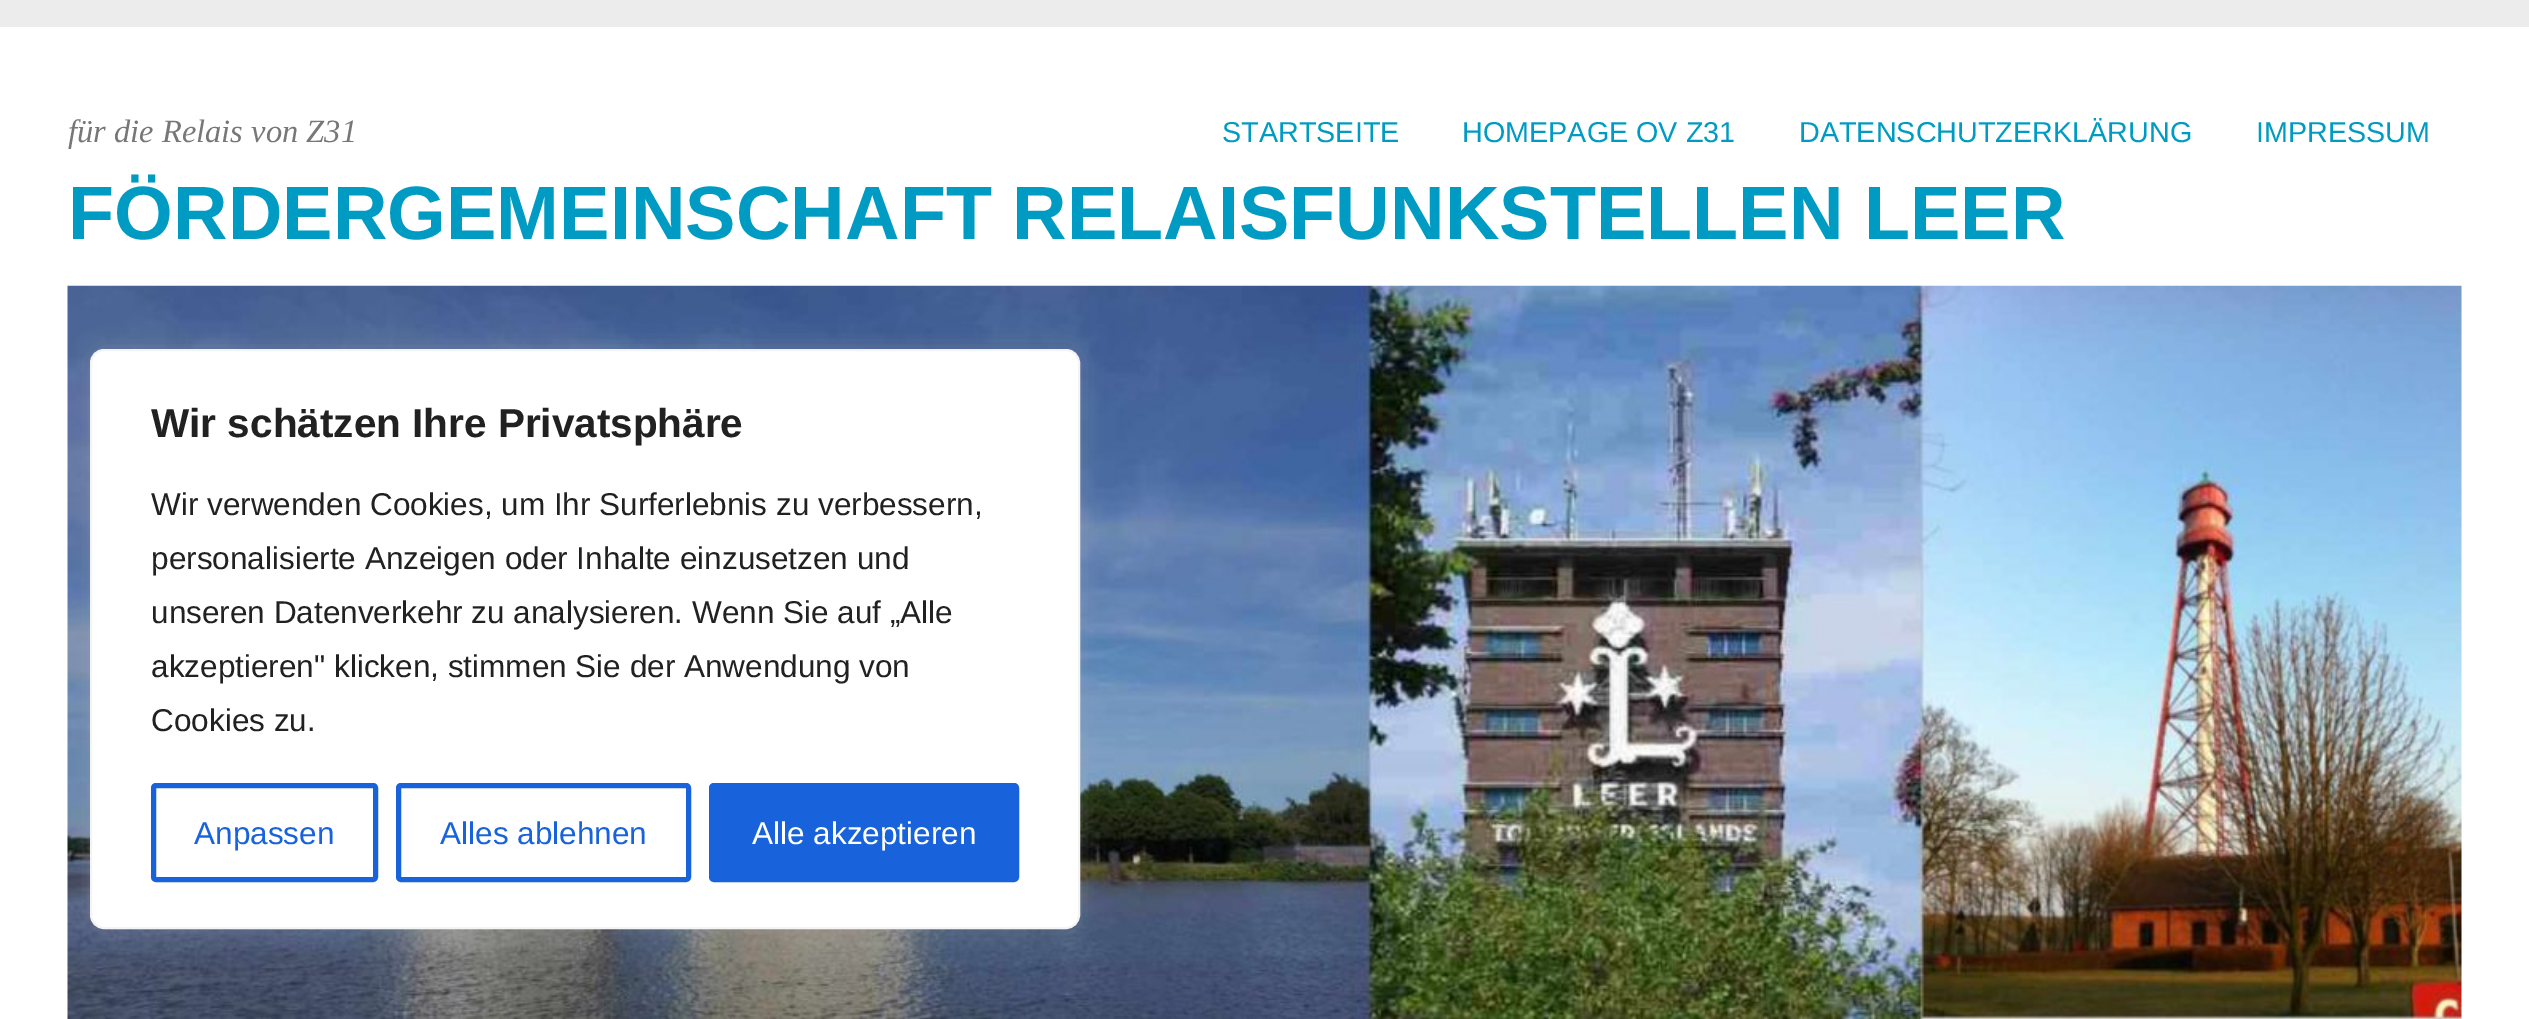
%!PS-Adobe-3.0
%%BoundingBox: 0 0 2529 1019
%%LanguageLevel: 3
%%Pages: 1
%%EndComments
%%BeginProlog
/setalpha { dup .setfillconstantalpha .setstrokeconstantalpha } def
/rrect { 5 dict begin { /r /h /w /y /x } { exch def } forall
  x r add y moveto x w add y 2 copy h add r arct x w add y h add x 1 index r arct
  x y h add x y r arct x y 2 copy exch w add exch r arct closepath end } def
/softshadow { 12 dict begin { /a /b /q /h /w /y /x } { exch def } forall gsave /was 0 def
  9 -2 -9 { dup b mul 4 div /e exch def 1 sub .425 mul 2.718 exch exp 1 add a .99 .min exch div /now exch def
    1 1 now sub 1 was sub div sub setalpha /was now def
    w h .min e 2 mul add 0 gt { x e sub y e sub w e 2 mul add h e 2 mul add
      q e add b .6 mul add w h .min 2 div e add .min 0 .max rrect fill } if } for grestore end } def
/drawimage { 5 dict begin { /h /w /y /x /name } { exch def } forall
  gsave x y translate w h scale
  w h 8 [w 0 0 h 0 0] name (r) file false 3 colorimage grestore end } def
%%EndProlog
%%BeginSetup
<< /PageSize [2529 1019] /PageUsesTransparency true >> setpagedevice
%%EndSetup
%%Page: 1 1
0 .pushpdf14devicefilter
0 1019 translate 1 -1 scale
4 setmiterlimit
0.925 setgray
0 0 2529 1019 rectfill
1 setgray
0 27 2529 992 rectfill
(images/1.raw) 67 285 2395 734 drawimage
0.675 0.671 0.671 setrgbcolor
90 347 990 580 14 11 0.3 softshadow
1 setgray
91 350 988 578 13 rrect gsave fill grestore
0.957 setgray
2 setlinewidth
stroke
0.094 0.388 0.863 setrgbcolor
5 setlinewidth
153.5 785.5 222 94 2.5 rrect stroke
398.5 785.5 290 94 2.5 rrect stroke
711.5 785.5 305 94 2.5 rrect gsave fill grestore
stroke
/LiberationSans-Regular [28.75 0 0 -28.75 0 0] selectfont
0 0.608 0.761 setrgbcolor
1222 142 moveto (STARTSEITE) show
1462 142 moveto (HOMEPAGE OV Z31) show
1799 142 moveto (DATENSCHUTZERKLÄRUNG) show
2256 142 moveto (IMPRESSUM) show
/LiberationSerif-Italic [32.5 0 0 -32.5 0 0] selectfont
0.467 setgray
68 142 moveto (für die Relais von Z31) show
/LiberationSans-Bold [75.6 0 0 -75.6 0 0] selectfont
0 0.608 0.761 setrgbcolor
68 239 moveto -1 0 32 (FÖRDERGEMEINSCHAFT RELAISFUNKSTELLEN LEER) widthshow
/LiberationSans-Bold [40.5 0 0 -40.5 0 0] selectfont
0.129 setgray
151 437 moveto (Wir schätzen Ihre Privatsphäre) show
/LiberationSans-Regular [31.5 0 0 -31.5 0 0] selectfont
151 515 moveto (Wir verwenden Cookies, um Ihr Surferlebnis zu verbessern,) show
151 569 moveto (personalisierte Anzeigen oder Inhalte einzusetzen und) show
151 623 moveto (unseren Datenverkehr zu analysieren. Wenn Sie auf „Alle) show
151 677 moveto (akzeptieren" klicken, stimmen Sie der Anwendung von) show
151 731 moveto (Cookies zu.) show
0.094 0.388 0.863 setrgbcolor
194 844 moveto (Anpassen) show
440 844 moveto (Alles ablehnen) show
1 setgray
752 844 moveto (Alle akzeptieren) show
.poppdf14devicefilter showpage
%%EOF
